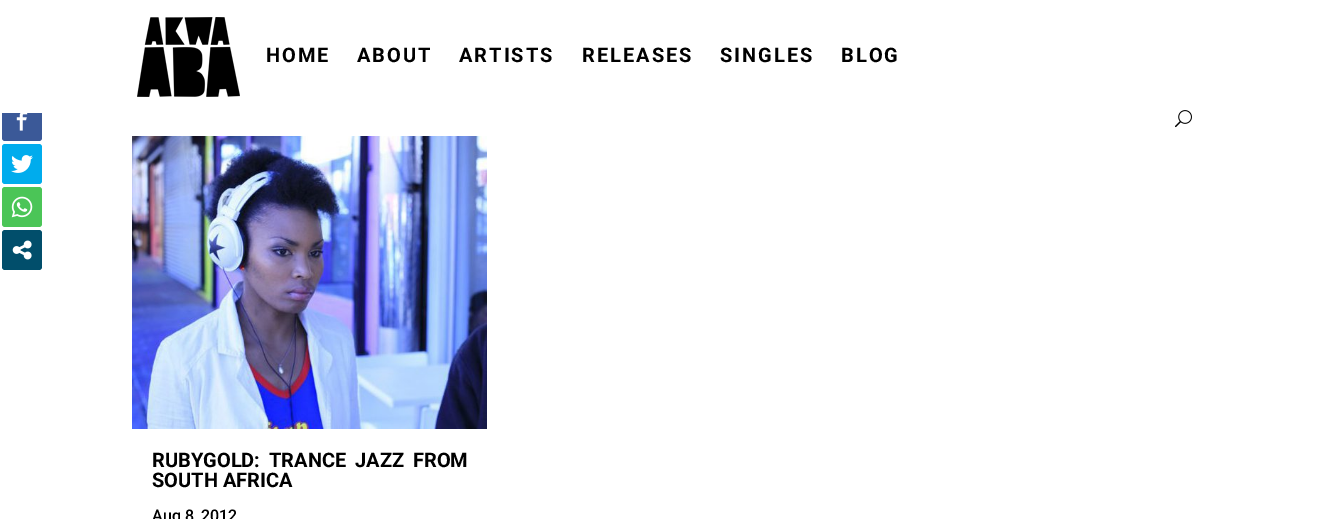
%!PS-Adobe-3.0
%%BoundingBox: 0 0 1326 519
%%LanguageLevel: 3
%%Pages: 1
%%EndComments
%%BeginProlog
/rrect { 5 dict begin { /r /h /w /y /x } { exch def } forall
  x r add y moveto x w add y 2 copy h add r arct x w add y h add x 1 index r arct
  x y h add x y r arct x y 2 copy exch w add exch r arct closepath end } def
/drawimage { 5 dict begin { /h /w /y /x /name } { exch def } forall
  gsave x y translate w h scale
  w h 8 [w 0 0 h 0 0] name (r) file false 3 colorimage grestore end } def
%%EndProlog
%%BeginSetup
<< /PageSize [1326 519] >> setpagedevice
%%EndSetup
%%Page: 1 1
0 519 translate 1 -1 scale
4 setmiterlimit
1 setgray
0 0 1326 519 rectfill
0.231 0.349 0.596 setrgbcolor
2 101 40 40 3 rrect fill
(images/1.raw) 16 113 12 18 drawimage
0 0.675 0.929 setrgbcolor
2 144 40 40 3 rrect fill
(images/2.raw) 11 155 22 18 drawimage
0.294 0.773 0.341 setrgbcolor
2 187 40 40 3 rrect fill
(images/3.raw) 11 196 22 22 drawimage
0.004 0.306 0.42 setrgbcolor
2 230 40 40 3 rrect fill
(images/4.raw) 12 240 20 20 drawimage
1 setgray
2 101 40 12 rectfill
(images/5.raw) 137 17 103 80 drawimage
(images/6.raw) 1175 110 17 18 drawimage
(images/7.raw) 132 136 355 293 drawimage
/Roboto-Bold [20 0 0 -20 0 0] selectfont
0 setgray
266 62 moveto 2 0 (HOME) ashow
357 62 moveto 2 0 (ABOUT) ashow
459 62 moveto 2 0 (ARTISTS) ashow
582 62 moveto 2 0 (RELEASES) ashow
720 62 moveto 2 0 (SINGLES) ashow
841 62 moveto 2 0 (BLOG) ashow
152 467 moveto 4 0 32 (RUBYGOLD: TRANCE JAZZ FROM) widthshow
152 487 moveto (SOUTH AFRICA) show
/Roboto-Medium [16 0 0 -16 0 0] selectfont
152 521 moveto (Aug 8, 2012) show
showpage
%%EOF
